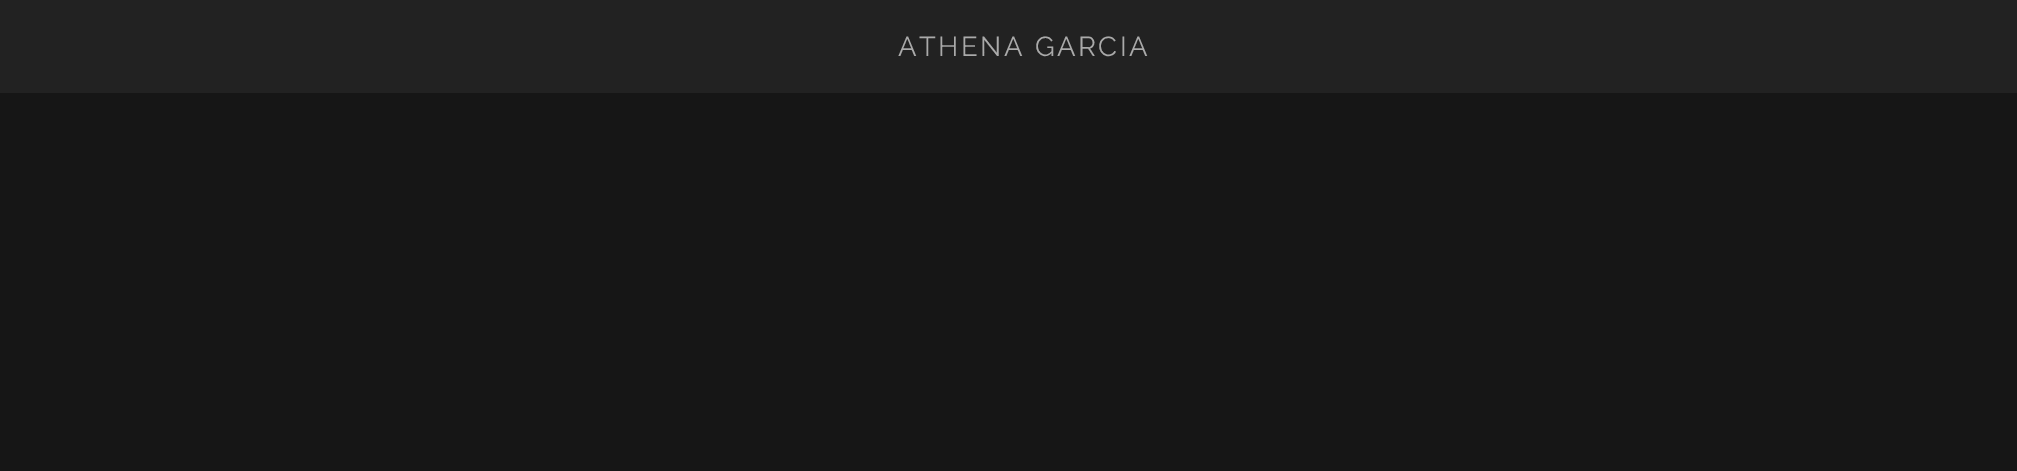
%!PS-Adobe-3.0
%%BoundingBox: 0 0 2017 471
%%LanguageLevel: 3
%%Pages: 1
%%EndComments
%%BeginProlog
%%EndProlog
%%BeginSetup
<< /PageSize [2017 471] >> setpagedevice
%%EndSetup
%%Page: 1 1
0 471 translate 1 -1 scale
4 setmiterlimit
0.086 setgray
0 0 2017 471 rectfill
0.133 setgray
0 0 2017 93 rectfill
/Raleway-Regular [27.5 0 0 -27.5 0 0] selectfont
0.667 setgray
898 56 moveto 2.5 0 (ATHENA GARCIA) ashow
showpage
%%EOF
